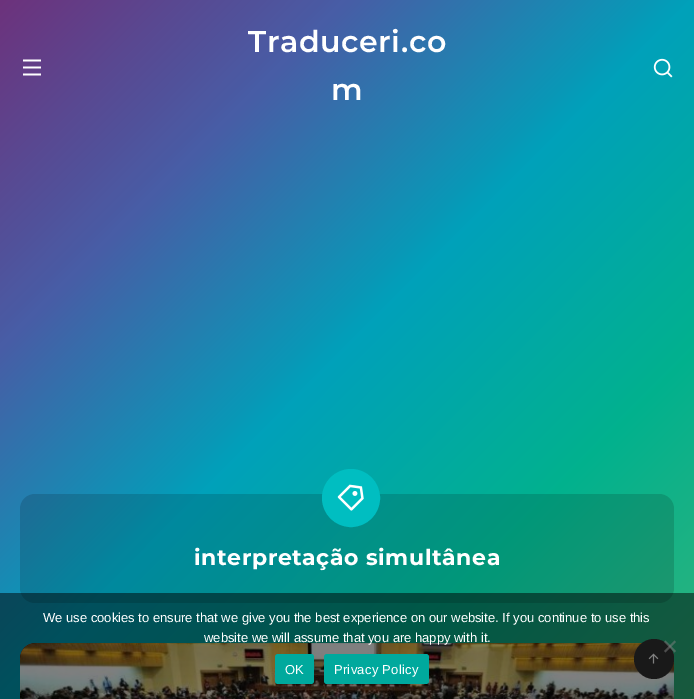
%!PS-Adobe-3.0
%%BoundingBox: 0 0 694 699
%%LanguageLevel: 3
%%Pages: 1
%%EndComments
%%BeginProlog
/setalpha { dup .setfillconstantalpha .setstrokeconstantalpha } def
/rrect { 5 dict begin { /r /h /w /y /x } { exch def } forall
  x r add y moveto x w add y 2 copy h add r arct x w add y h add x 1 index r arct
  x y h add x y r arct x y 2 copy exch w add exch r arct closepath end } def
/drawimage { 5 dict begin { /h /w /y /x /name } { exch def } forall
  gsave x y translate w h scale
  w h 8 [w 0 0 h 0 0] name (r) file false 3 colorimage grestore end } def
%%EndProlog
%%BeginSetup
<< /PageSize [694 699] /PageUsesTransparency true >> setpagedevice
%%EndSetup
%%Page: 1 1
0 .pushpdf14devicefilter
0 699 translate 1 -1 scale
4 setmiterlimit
1 setgray
0 0 694 699 rectfill
gsave newpath 0 0 moveto 694 0 lineto 694 699 lineto 0 699 lineto closepath clip newpath
<< /ShadingType 2 /ColorSpace /DeviceRGB /Coords [-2.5 2.5 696 696] /Extend [true true] /Function << /FunctionType 3 /Domain [0 1] /Functions [<< /FunctionType 2 /Domain [0 1] /C0 [0.427 0.196 0.486] /C1 [0.282 0.365 0.651] /N 1 >> << /FunctionType 2 /Domain [0 1] /C0 [0.282 0.365 0.651] /C1 [0 0.631 0.729] /N 1 >> << /FunctionType 2 /Domain [0 1] /C0 [0 0.631 0.729] /C1 [0.004 0.694 0.557] /N 1 >> << /FunctionType 2 /Domain [0 1] /C0 [0.004 0.694 0.557] /C1 [0.196 0.702 0.482] /N 1 >>] /Bounds [0.25 0.5 0.75] /Encode [0 1 0 1 0 1 0 1] >> >> shfill grestore
(images/1.raw) 23 59 18 17 drawimage
(images/2.raw) 653 58 20 20 drawimage
0.15 setalpha
0 setgray
20 494 654 109 15 rrect fill
1 setalpha
0 0.745 0.757 setrgbcolor
newpath 351 498 27 0 360 arc closepath gsave fill grestore
4 setlinewidth
stroke
(images/3.raw) 337 484 27 27 drawimage
0 setgray
newpath 35 643 moveto 659 643 lineto 667.5 643 674 649.5 674 658 curveto 674 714 lineto 20 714 lineto 20 658 lineto 20 649.5 26.5 643 35 643 curveto closepath fill
(images/4.raw) 20 643 654 56 drawimage
0.2 setgray
newpath 654 659 20 0 360 arc closepath fill
(images/5.raw) 648 653 11 11 drawimage
0.5 setalpha
0 setgray
0 593 694 106 rectfill
0.502 setgray
newpath 674.5 640.5 moveto 676 642 lineto 665.5 652.5 lineto 664 651 lineto closepath fill
newpath 664 642 moveto 665.5 640.5 lineto 676 651 lineto 674.5 652.5 lineto closepath fill
1 setalpha
0 0.663 0.616 setrgbcolor
275 654 39 30 3 rrect fill
324 654 105 30 3 rrect fill
/Montserrat-SemiBold [30 0 0 -30 0 0] selectfont
1 setgray
248 52 moveto 0.6 0 (Traduceri.co) ashow
331 100 moveto 0.6 0 (m) ashow
/Montserrat-Bold [22 0 0 -22 0 0] selectfont
194 565 moveto 0.6 0 (interpretação simultânea) ashow
/LiberationSans-Regular [13 0 0 -13 0 0] selectfont
43 622 moveto (We use cookies to ensure that we give you the best experience on our website. If you continue to use this) show
204 642 moveto (website we will assume that you are happy with it.) show
285 674 moveto 0.25 0 (OK) ashow
334 674 moveto 0.25 0 (Privacy Policy) ashow
.poppdf14devicefilter showpage
%%EOF
